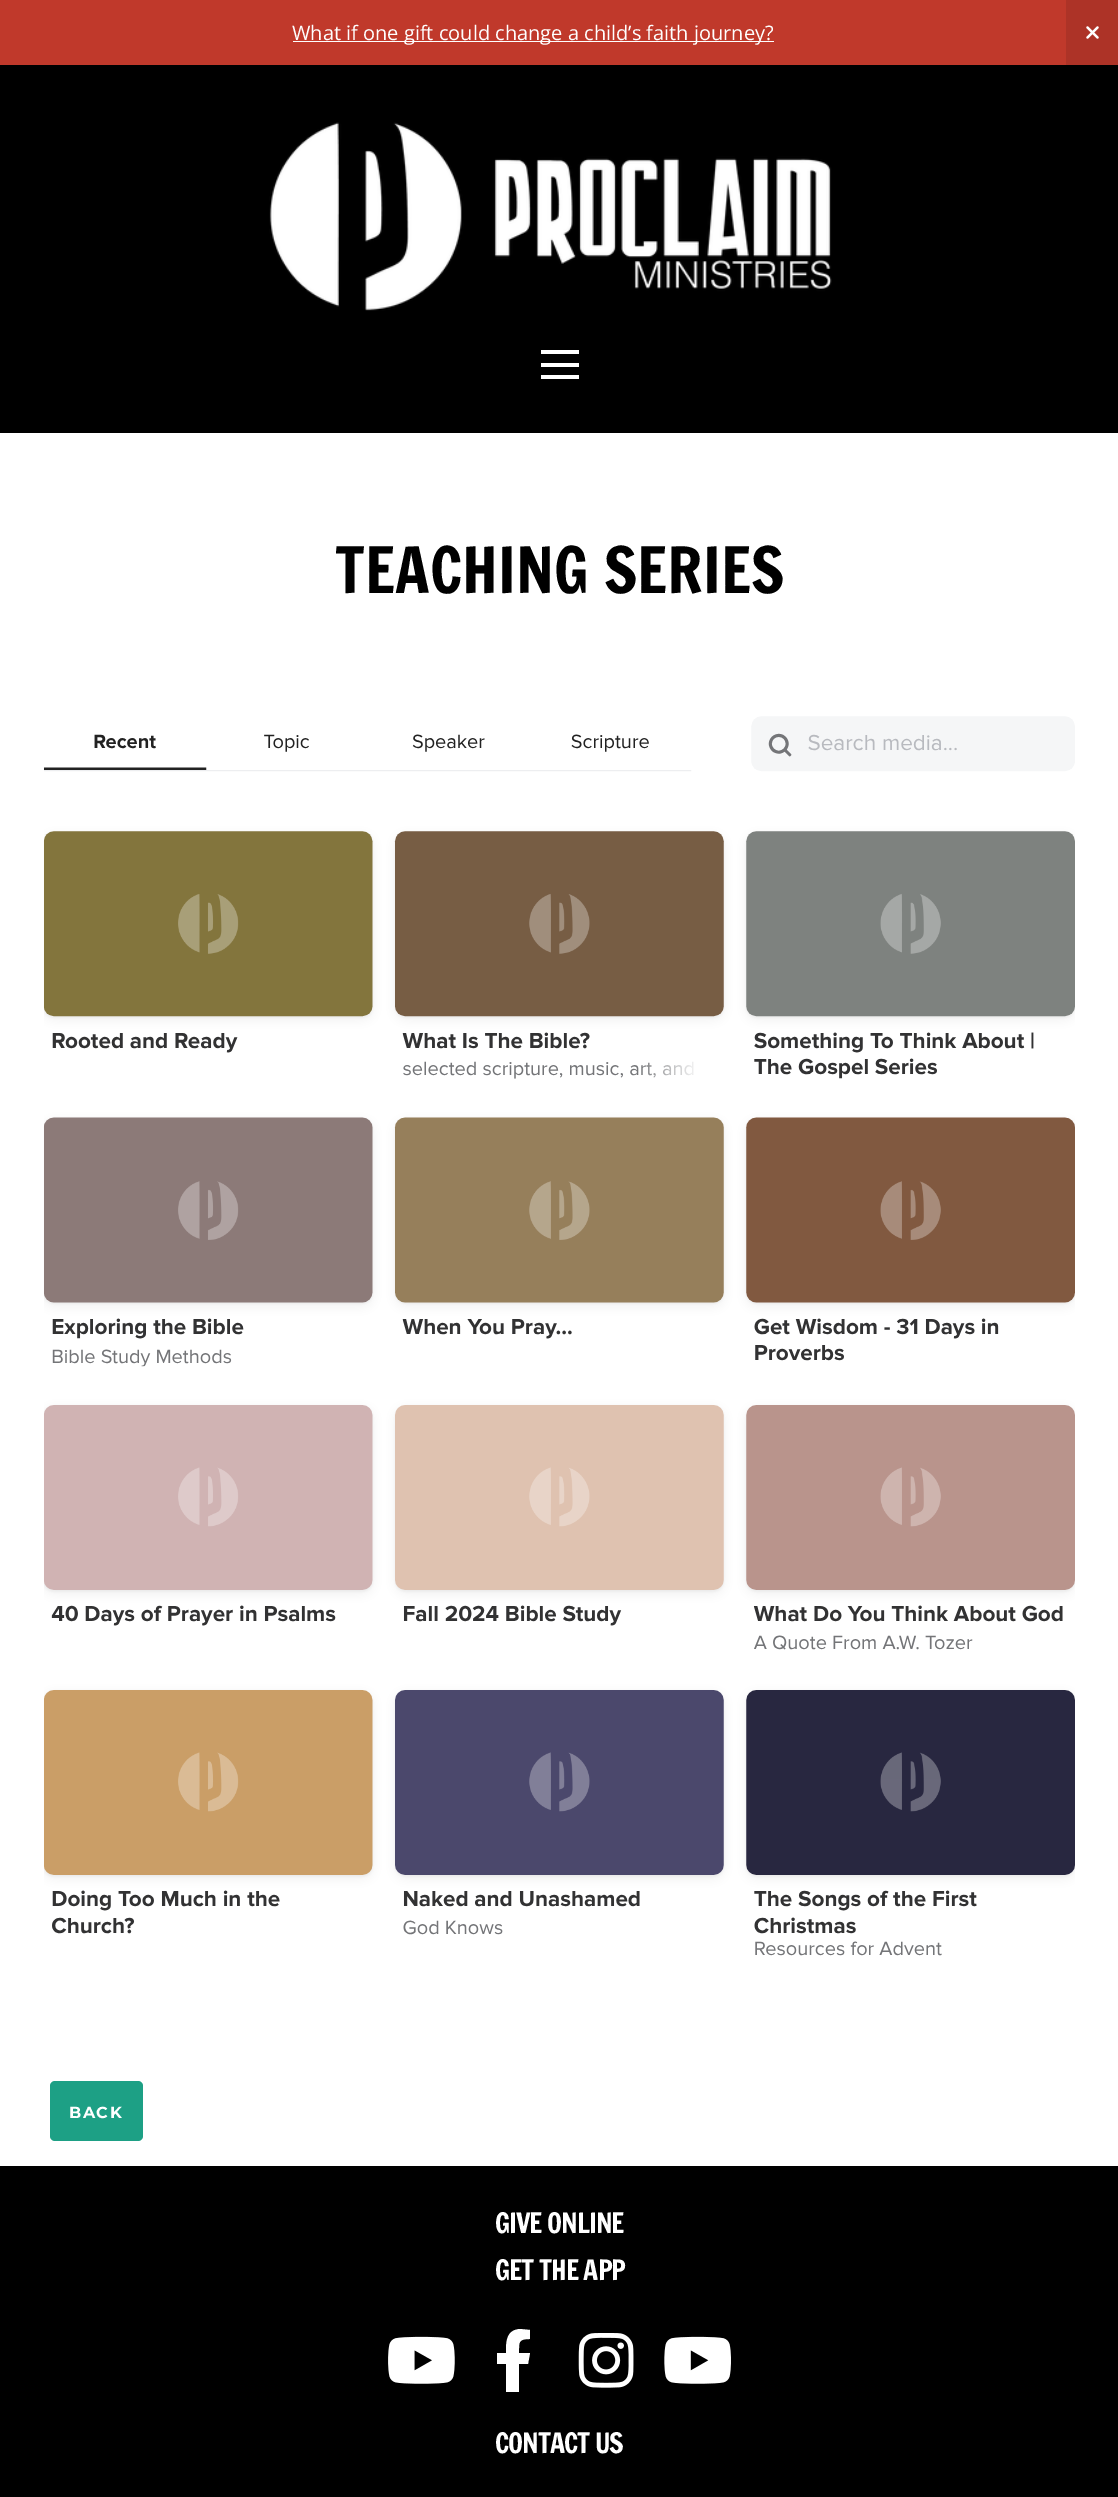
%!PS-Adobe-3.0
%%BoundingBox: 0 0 1118 2497
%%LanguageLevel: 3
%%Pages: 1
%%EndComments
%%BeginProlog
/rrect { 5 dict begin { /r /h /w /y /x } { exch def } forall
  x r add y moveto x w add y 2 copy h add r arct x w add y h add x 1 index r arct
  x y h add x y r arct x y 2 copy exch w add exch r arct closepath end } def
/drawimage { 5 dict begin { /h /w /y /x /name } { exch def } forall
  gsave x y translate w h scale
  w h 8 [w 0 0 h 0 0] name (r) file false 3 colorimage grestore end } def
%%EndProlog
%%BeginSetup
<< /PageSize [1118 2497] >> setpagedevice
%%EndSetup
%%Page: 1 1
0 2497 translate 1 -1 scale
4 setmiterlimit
0 setgray
0 0 1118 2497 rectfill
0.753 0.224 0.169 setrgbcolor
0 0 1066 65 rectfill
1 setgray
293 41 481 1 rectfill
0.678 0.2 0.153 setrgbcolor
1066 0 52 65 rectfill
(images/1.raw) 1086 26 13 13 drawimage
(images/2.raw) 269 122 563 189 drawimage
1 setgray
541 350 38 4 rectfill
541 363 38 4 rectfill
541 375 38 4 rectfill
0 433 1118 1733 rectfill
(images/3.raw) 43 716 1032 1240 drawimage
0.114 0.627 0.522 setrgbcolor
50 2081 93 60 5 rrect fill
(images/4.raw) 388 2336 67 48 drawimage
1 setgray
newpath 528 2364 moveto 530 2353 lineto 519 2353 lineto 519 2342 518 2339 530 2339 curveto 530 2330 lineto 520 2329 lineto 506 2330 506 2342 506 2353 curveto 497 2353 lineto 497 2364 lineto 506 2364 lineto 506 2392 lineto 519 2392 lineto 519 2364 lineto closepath fill
(images/5.raw) 578 2333 56 55 drawimage
(images/6.raw) 664 2336 67 48 drawimage
/OpenSans-Regular [20 0 0 -20 0 0] selectfont
292 40 moveto (What if one gift could change a child’s faith journey?) show
/FrancoisOne-Regular [62.5 0 0 -62.5 0 0] selectfont
0 setgray
335 593 moveto (TEACHING SERIES) show
/Montserrat-Bold [16 0 0 -16 0 0] selectfont
1 setgray
69 2118 moveto 1.5 0 (BACK) ashow
/FrancoisOne-Regular [27.5 0 0 -27.5 0 0] selectfont
495 2233 moveto -1.1 0 (GIVE ONLINE) ashow
495 2280 moveto -1.1 0 (GET THE APP) ashow
495 2453 moveto -1.1 0 (CONTACT US) ashow
showpage
%%EOF
